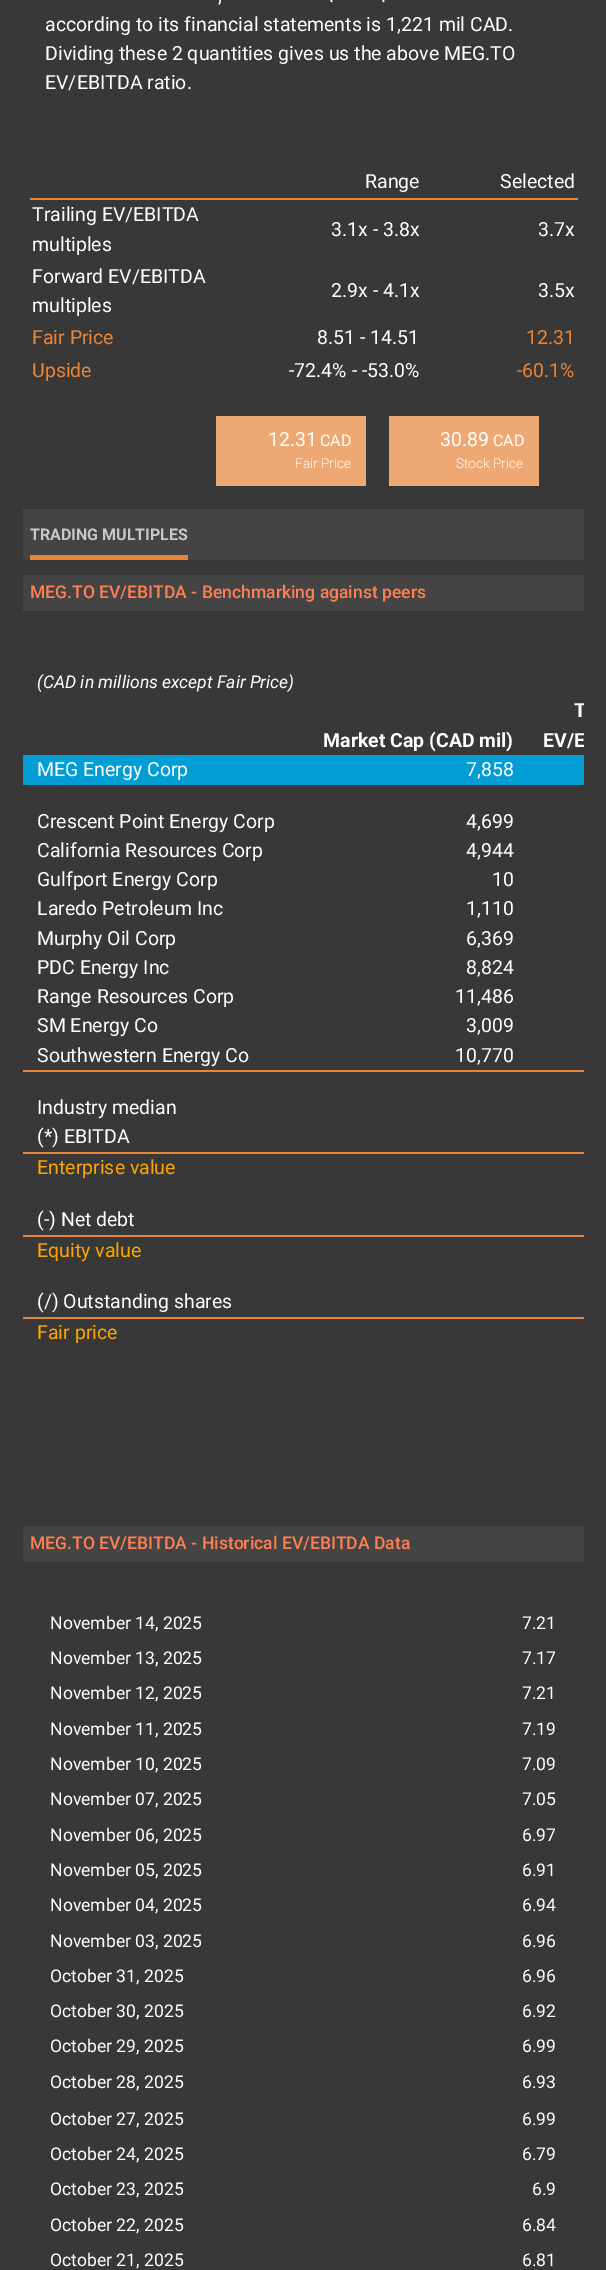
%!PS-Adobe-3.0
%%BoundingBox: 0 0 606 2270
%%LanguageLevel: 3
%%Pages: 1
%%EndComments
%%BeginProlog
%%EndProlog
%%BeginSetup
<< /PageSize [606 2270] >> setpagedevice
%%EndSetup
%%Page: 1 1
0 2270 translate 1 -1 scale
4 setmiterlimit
0.22 setgray
0 0 606 2270 rectfill
0.918 0.518 0.212 setrgbcolor
30 198 548 2 rectfill
0.933 0.659 0.455 setrgbcolor
216 416 150 70 rectfill
389 416 150 70 rectfill
0.267 setgray
23 509 561 51 rectfill
0.918 0.518 0.212 setrgbcolor
30 555 158 5 rectfill
0.267 setgray
23 575 561 36 rectfill
0.008 0.616 0.835 setrgbcolor
23 755 561 30 rectfill
0.918 0.518 0.212 setrgbcolor
23 1070 561 2 rectfill
23 1152 561 2 rectfill
23 1235 561 2 rectfill
23 1317 561 2 rectfill
0.267 setgray
23 1526 561 36 rectfill
/Roboto-Regular [19.5 0 0 -19.5 0 0] selectfont
1 setgray
218 2 moveto (,) show
329 2 moveto (.) show
381 2 moveto (.) show
45 31 moveto (according to its financial statements is 1,221 mil CAD.) show
45 60 moveto (Dividing these 2 quantities gives us the above MEG.TO) show
45 89 moveto (EV/EBITDA ratio.) show
365 188 moveto (Range) show
500 188 moveto (Selected) show
32 221 moveto (Trailing EV/EBITDA) show
32 251 moveto (multiples) show
331 236 moveto (3.1x - 3.8x) show
538 236 moveto (3.7x) show
32 283 moveto (Forward EV/EBITDA) show
32 312 moveto (multiples) show
331 297 moveto (2.9x - 4.1x) show
538 297 moveto (3.5x) show
0.918 0.518 0.212 setrgbcolor
32 344 moveto (Fair Price) show
1 setgray
317 344 moveto (8.51 - 14.51) show
0.918 0.518 0.212 setrgbcolor
526 344 moveto (12.31) show
32 377 moveto (Upside) show
1 setgray
289 377 moveto (-72.4% - -53.0%) show
0.918 0.518 0.212 setrgbcolor
517 377 moveto (-60.1%) show
1 setgray
268 446 moveto (12.31) show
/Roboto-Regular [16 0 0 -16 0 0] selectfont
320 446 moveto (CAD) show
/Roboto-Light [13.5 0 0 -13.5 0 0] selectfont
295 468 moveto (Fair Price) show
/Roboto-Regular [19.5 0 0 -19.5 0 0] selectfont
440 446 moveto (30.89) show
/Roboto-Regular [16 0 0 -16 0 0] selectfont
493 446 moveto (CAD) show
/Roboto-Light [13.5 0 0 -13.5 0 0] selectfont
456 468 moveto (Stock Price) show
/Roboto-Bold [16 0 0 -16 0 0] selectfont
0.788 setgray
30 540 moveto (TRADING MULTIPLES) show
/Roboto-Medium [17.55 0 0 -17.55 0 0] selectfont
1 0.498 0.314 setrgbcolor
30 598 moveto (MEG.TO EV/EBITDA - Benchmarking against peers) show
/Roboto-Italic [17.55 0 0 -17.55 0 0] selectfont
1 setgray
37 688 moveto (\(CAD in millions except Fair Price\)) show
gsave
23 656 561 825 rectclip
/Roboto-Bold [19.5 0 0 -19.5 0 0] selectfont
574 717 moveto (T) show
grestore
/Roboto-Bold [19.5 0 0 -19.5 0 0] selectfont
323 747 moveto (Market Cap \(CAD mil\)) show
gsave
23 656 561 825 rectclip
543 747 moveto (EV/E) show
grestore
/Roboto-Regular [19.5 0 0 -19.5 0 0] selectfont
37 776 moveto (MEG Energy Corp) show
466 776 moveto (7,858) show
37 828 moveto (Crescent Point Energy Corp) show
466 828 moveto (4,699) show
37 857 moveto (California Resources Corp) show
466 857 moveto (4,944) show
37 886 moveto (Gulfport Energy Corp) show
492 886 moveto (10) show
37 915 moveto (Laredo Petroleum Inc) show
466 915 moveto (1,110) show
37 945 moveto (Murphy Oil Corp) show
466 945 moveto (6,369) show
37 974 moveto (PDC Energy Inc) show
466 974 moveto (8,824) show
37 1003 moveto (Range Resources Corp) show
455 1003 moveto (11,486) show
37 1032 moveto (SM Energy Co) show
466 1032 moveto (3,009) show
37 1062 moveto (Southwestern Energy Co) show
455 1062 moveto (10,770) show
37 1114 moveto (Industry median) show
37 1143 moveto (\(*\) EBITDA) show
1 0.647 0 setrgbcolor
37 1174 moveto (Enterprise value) show
1 setgray
37 1226 moveto (\(-\) Net debt) show
1 0.647 0 setrgbcolor
37 1257 moveto (Equity value) show
1 setgray
37 1308 moveto (\(/\) Outstanding shares) show
1 0.647 0 setrgbcolor
37 1339 moveto (Fair price) show
/Roboto-Medium [17.55 0 0 -17.55 0 0] selectfont
1 0.498 0.314 setrgbcolor
30 1549 moveto (MEG.TO EV/EBITDA - Historical EV/EBITDA Data) show
/Roboto-Regular [17.55 0 0 -17.55 0 0] selectfont
1 setgray
50 1629 moveto (November 14, 2025) show
522 1629 moveto (7.21) show
50 1664 moveto (November 13, 2025) show
522 1664 moveto (7.17) show
50 1699 moveto (November 12, 2025) show
522 1699 moveto (7.21) show
50 1735 moveto (November 11, 2025) show
522 1735 moveto (7.19) show
50 1770 moveto (November 10, 2025) show
522 1770 moveto (7.09) show
50 1805 moveto (November 07, 2025) show
522 1805 moveto (7.05) show
50 1841 moveto (November 06, 2025) show
522 1841 moveto (6.97) show
50 1876 moveto (November 05, 2025) show
522 1876 moveto (6.91) show
50 1911 moveto (November 04, 2025) show
522 1911 moveto (6.94) show
50 1947 moveto (November 03, 2025) show
522 1947 moveto (6.96) show
50 1982 moveto (October 31, 2025) show
522 1982 moveto (6.96) show
50 2017 moveto (October 30, 2025) show
522 2017 moveto (6.92) show
50 2052 moveto (October 29, 2025) show
522 2052 moveto (6.99) show
50 2088 moveto (October 28, 2025) show
522 2088 moveto (6.93) show
50 2125 moveto (October 27, 2025) show
522 2125 moveto (6.99) show
50 2160 moveto (October 24, 2025) show
522 2160 moveto (6.79) show
50 2195 moveto (October 23, 2025) show
532 2195 moveto (6.9) show
50 2231 moveto (October 22, 2025) show
522 2231 moveto (6.84) show
50 2266 moveto (October 21, 2025) show
522 2266 moveto (6.81) show
showpage
%%EOF
